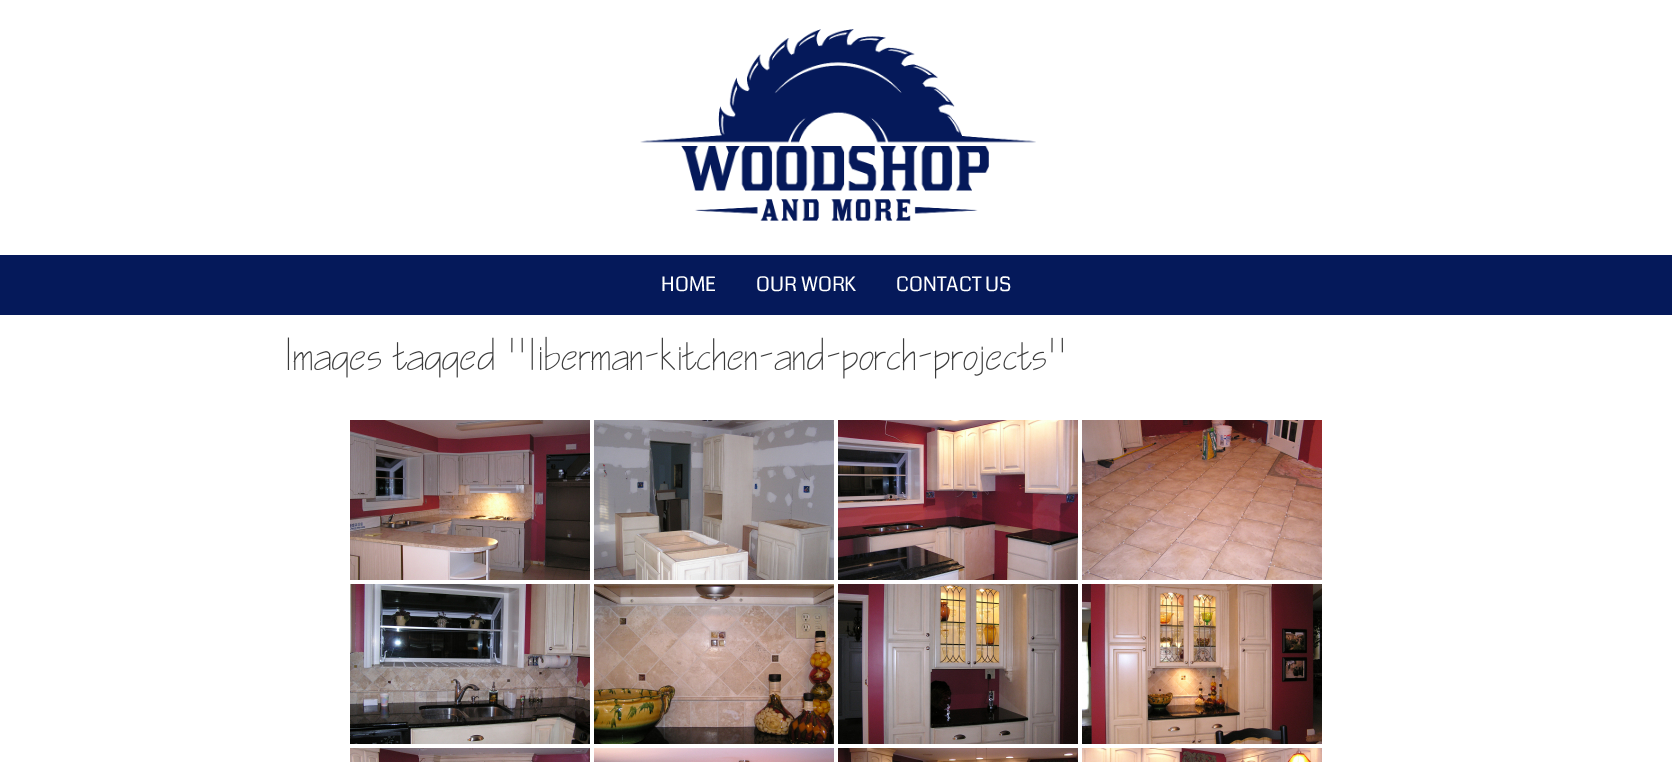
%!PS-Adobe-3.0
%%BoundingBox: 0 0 1672 762
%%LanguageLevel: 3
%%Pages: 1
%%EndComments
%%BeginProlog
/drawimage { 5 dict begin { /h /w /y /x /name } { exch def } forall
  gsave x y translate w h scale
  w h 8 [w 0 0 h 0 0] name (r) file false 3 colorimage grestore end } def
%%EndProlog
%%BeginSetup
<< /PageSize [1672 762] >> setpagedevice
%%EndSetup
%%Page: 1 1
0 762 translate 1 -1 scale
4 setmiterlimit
1 setgray
0 0 1672 762 rectfill
(images/1.raw) 640 29 396 192 drawimage
0.02 0.098 0.353 setrgbcolor
0 255 1672 60 rectfill
(images/2.raw) 287 336 776 43 drawimage
(images/3.raw) 350 420 240 160 drawimage
(images/4.raw) 594 420 240 160 drawimage
(images/5.raw) 838 420 240 160 drawimage
(images/6.raw) 1082 420 240 160 drawimage
(images/7.raw) 350 584 240 160 drawimage
(images/8.raw) 594 584 240 160 drawimage
(images/9.raw) 838 584 240 160 drawimage
(images/10.raw) 1082 584 240 160 drawimage
(images/11.raw) 350 748 240 14 drawimage
(images/12.raw) 594 748 240 14 drawimage
(images/13.raw) 838 748 240 14 drawimage
(images/14.raw) 1082 748 240 14 drawimage
/Coda-Regular [20 0 0 -20 0 0] selectfont
1 setgray
661 291 moveto (HOME) show
756 291 moveto (OUR WORK) show
896 291 moveto (CONTACT US) show
showpage
%%EOF
